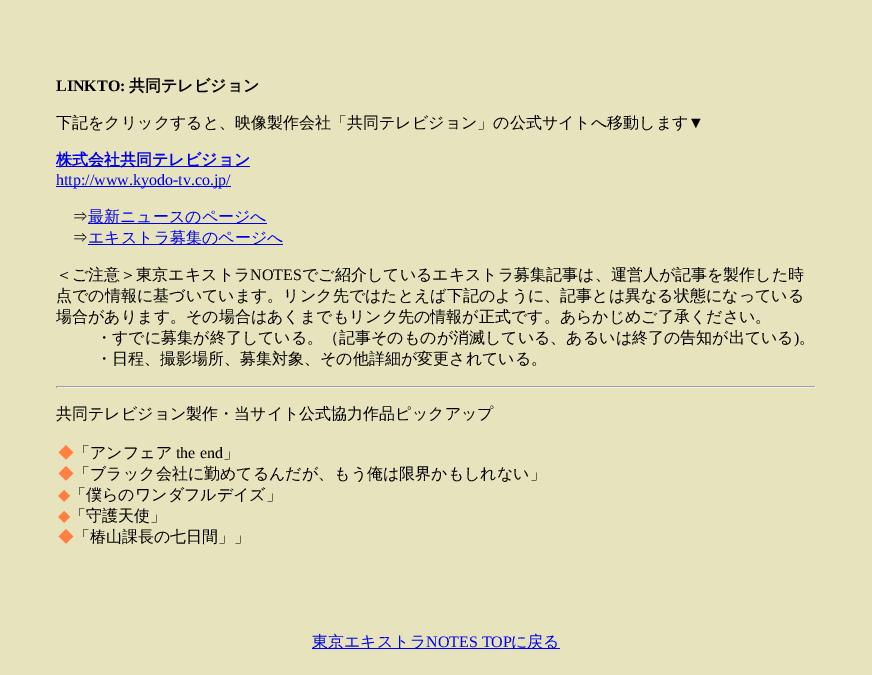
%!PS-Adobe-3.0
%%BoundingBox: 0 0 872 675
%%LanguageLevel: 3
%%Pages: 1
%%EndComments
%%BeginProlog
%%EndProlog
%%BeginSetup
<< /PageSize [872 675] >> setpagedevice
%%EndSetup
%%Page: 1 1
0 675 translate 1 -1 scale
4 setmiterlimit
0.902 0.89 0.741 setrgbcolor
0 0 872 675 rectfill
0 0 0.933 setrgbcolor
56 166 194 1 rectfill
56 186 175 1 rectfill
88 223 179 1 rectfill
88 244 195 1 rectfill
0.624 setgray
56 386 760 1 rectfill
0.933 setgray
815 386 1 2 rectfill
56 387 760 1 rectfill
0.624 setgray
56 386 1 2 rectfill
0 0 0.933 setrgbcolor
312 648 248 1 rectfill
/LiberationSerif-Bold [16 0 0 -16 0 0] selectfont
0 setgray
56 91 moveto (LINKTO:) show
/WenQuanYiZenHei-Bold [16 0 0 -16 0 0] selectfont
129 91 moveto (共同テレビジョン) show
/WenQuanYiZenHei-Medium [16 0 0 -16 0 0] selectfont
56 128 moveto (下記をクリックすると、映像製作会社「共同テレビジョン」の公式サイトへ移動します) show
/LiberationSerif-Regular [16 0 0 -16 0 0] selectfont
688 128 moveto (▼) show
/WenQuanYiZenHei-Bold [16 0 0 -16 0 0] selectfont
0 0 0.933 setrgbcolor
56 165 moveto (株式会社共同テレビジョン) show
/LiberationSerif-Regular [16 0 0 -16 0 0] selectfont
56 185 moveto (http://www.kyodo-tv.co.jp/) show
/WenQuanYiZenHei-Medium [16 0 0 -16 0 0] selectfont
0 setgray
72 222 moveto (⇒) show
0 0 0.933 setrgbcolor
88 222 moveto (最新ニュースのページへ) show
0 setgray
72 243 moveto (⇒) show
0 0 0.933 setrgbcolor
88 243 moveto (エキストラ募集のページへ) show
0 setgray
56 280 moveto (＜ご注意＞東京エキストラ) show
/LiberationSerif-Regular [16 0 0 -16 0 0] selectfont
250 280 moveto (NOTES) show
/WenQuanYiZenHei-Medium [16 0 0 -16 0 0] selectfont
302 280 moveto (でご紹介しているエキストラ募集記事は、運営人が記事を製作した時) show
56 301 moveto (点での情報に基づいています。リンク先ではたとえば下記のように、記事とは異なる状態になっている) show
56 322 moveto (場合があります。その場合はあくまでもリンク先の情報が正式です。あらかじめご了承ください。) show
96 343 moveto (・すでに募集が終了している。（記事そのものが消滅している、あるいは終了の告知が出ている) show
/LiberationSerif-Regular [16 0 0 -16 0 0] selectfont
794 343 moveto (\)) show
/WenQuanYiZenHei-Medium [16 0 0 -16 0 0] selectfont
799 343 moveto (。) show
96 364 moveto (・日程、撮影場所、募集対象、その他詳細が変更されている。) show
56 419 moveto (共同テレビジョン製作・当サイト公式協力作品ピックアップ) show
1 0.502 0.251 setrgbcolor
58 458 moveto (◆) show
0 setgray
74 458 moveto (「アンフェア) show
/LiberationSerif-Regular [16 0 0 -16 0 0] selectfont
176 458 moveto (the end) show
/WenQuanYiZenHei-Medium [16 0 0 -16 0 0] selectfont
223 458 moveto (」) show
1 0.502 0.251 setrgbcolor
58 479 moveto (◆) show
0 setgray
74 479 moveto (「ブラック会社に勤めてるんだが、もう俺は限界かもしれない」) show
/DejaVuSans-Regular [16 0 0 -16 0 0] selectfont
1 0.502 0.251 setrgbcolor
58 500 moveto (◆) show
/WenQuanYiZenHei-Medium [16 0 0 -16 0 0] selectfont
0 setgray
70 500 moveto (「僕らのワンダフルデイズ」) show
/DejaVuSans-Regular [16 0 0 -16 0 0] selectfont
1 0.502 0.251 setrgbcolor
58 521 moveto (◆) show
/WenQuanYiZenHei-Medium [16 0 0 -16 0 0] selectfont
0 setgray
70 521 moveto (「守護天使」) show
1 0.502 0.251 setrgbcolor
58 542 moveto (◆) show
0 setgray
74 542 moveto (「椿山課長の七日間」」) show
0 0 0.933 setrgbcolor
312 647 moveto (東京エキストラ) show
/LiberationSerif-Regular [16 0 0 -16 0 0] selectfont
426 647 moveto (NOTES TOP) show
/WenQuanYiZenHei-Medium [16 0 0 -16 0 0] selectfont
511 647 moveto (に戻る) show
showpage
%%EOF
